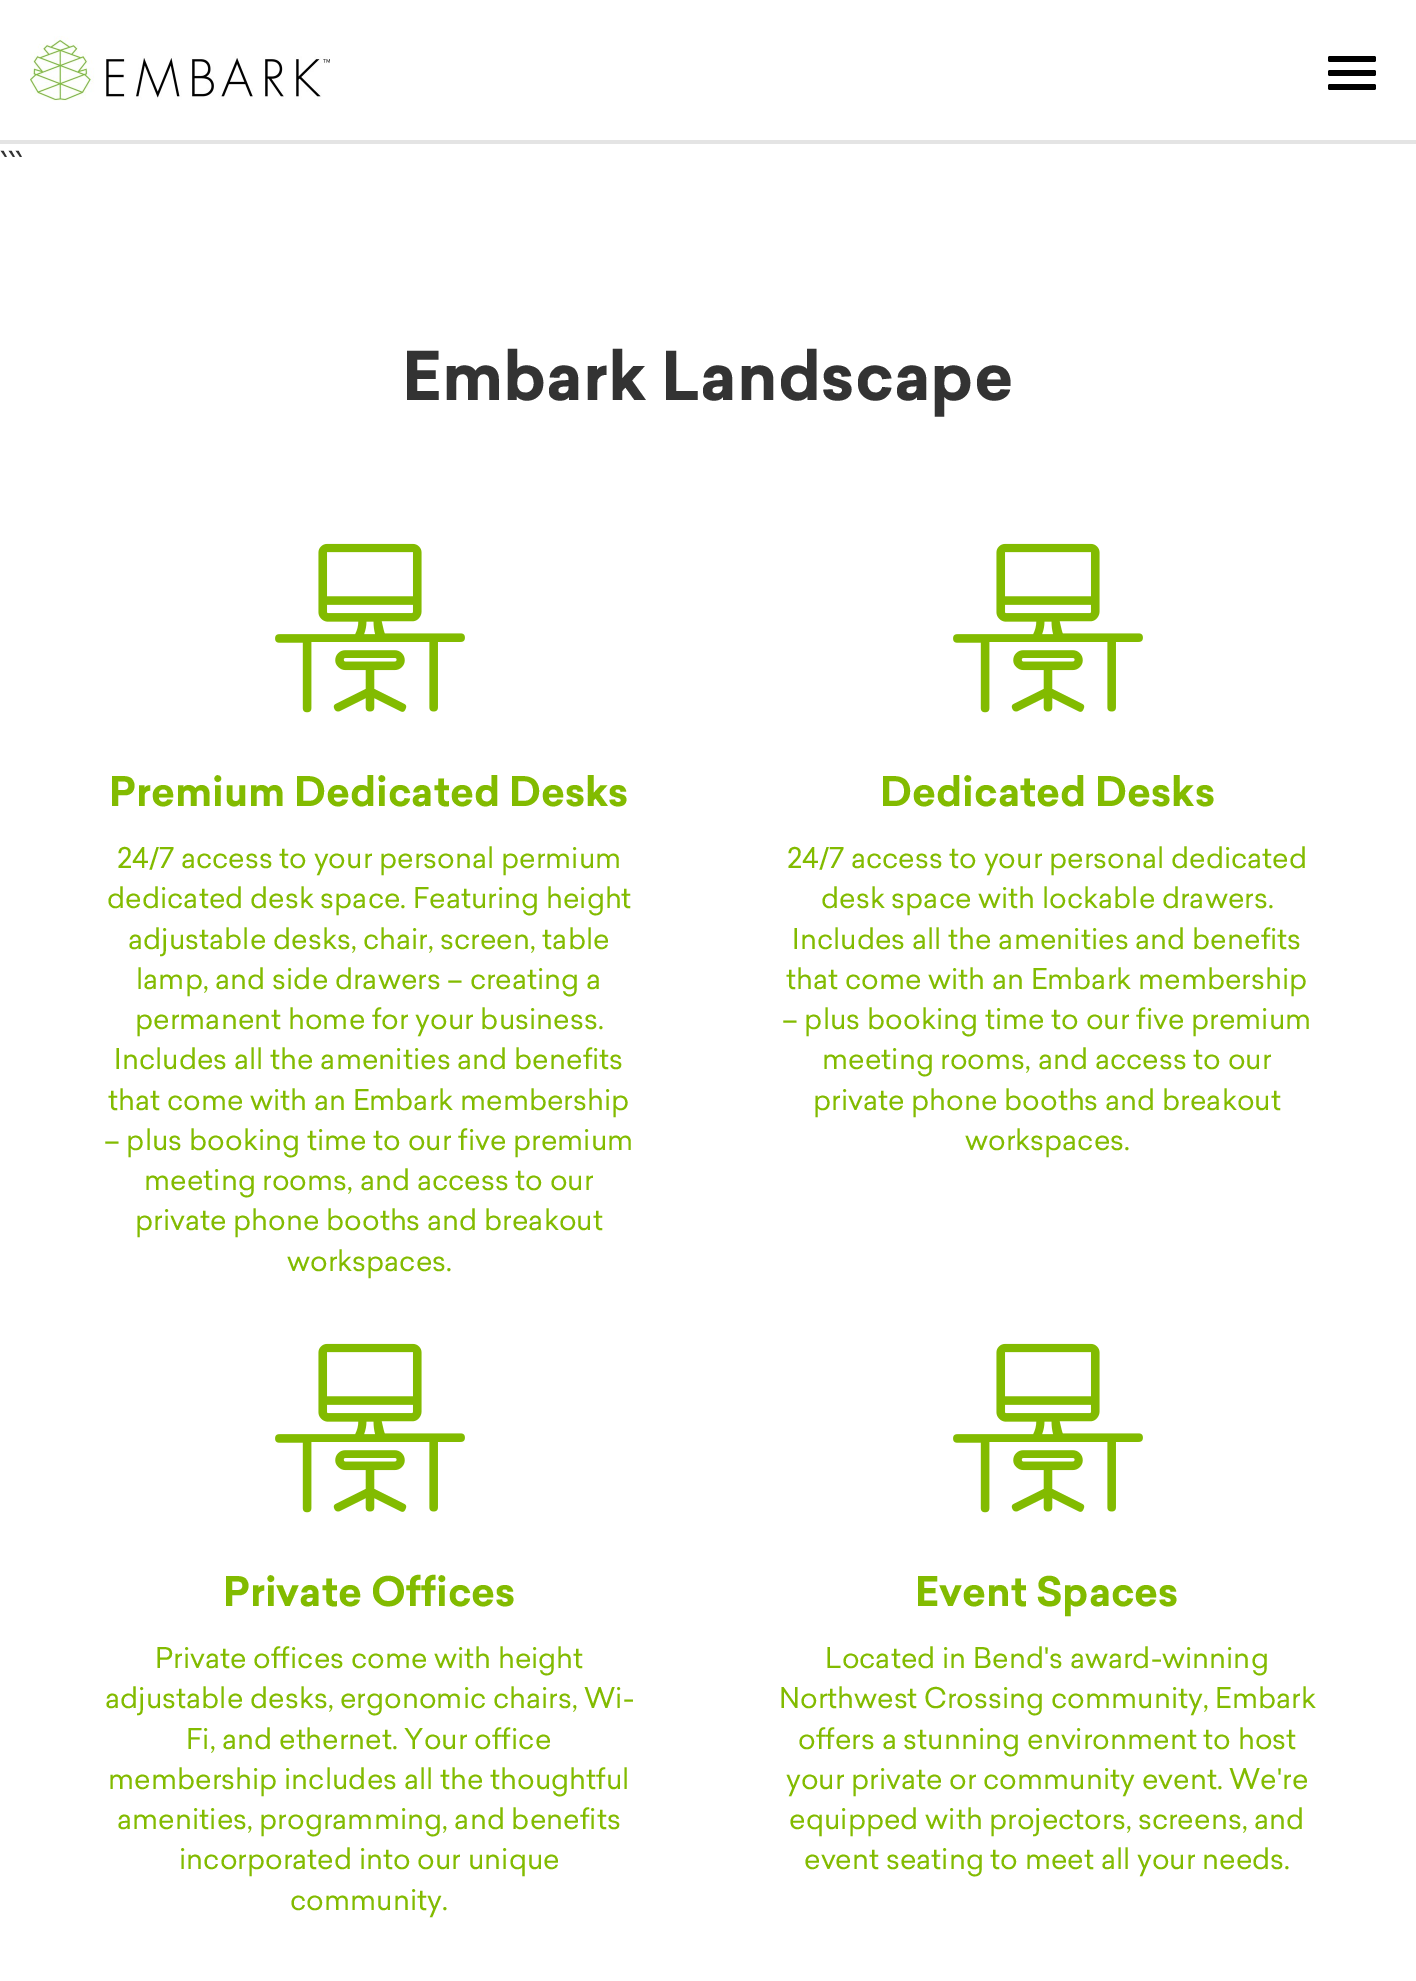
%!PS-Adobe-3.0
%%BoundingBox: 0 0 1416 1981
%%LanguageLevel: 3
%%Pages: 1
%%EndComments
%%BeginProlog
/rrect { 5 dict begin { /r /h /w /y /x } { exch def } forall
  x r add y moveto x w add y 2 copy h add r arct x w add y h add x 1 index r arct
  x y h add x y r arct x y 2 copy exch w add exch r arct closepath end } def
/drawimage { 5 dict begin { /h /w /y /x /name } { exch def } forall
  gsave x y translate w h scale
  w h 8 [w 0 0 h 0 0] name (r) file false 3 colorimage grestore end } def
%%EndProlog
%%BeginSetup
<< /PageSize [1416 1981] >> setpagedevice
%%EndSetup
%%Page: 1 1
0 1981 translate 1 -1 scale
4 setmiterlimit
1 setgray
0 0 1416 1981 rectfill
0.894 setgray
0 140 1416 4 rectfill
(images/1.raw) 30 36 300 65 drawimage
0 setgray
1328 56 48 6 2 rrect fill
1328 70 48 6 2 rrect fill
1328 84 48 6 2 rrect fill
(images/2.raw) 275 543 190 170 drawimage
(images/2.raw) 953 543 190 170 drawimage
(images/2.raw) 275 1343 190 170 drawimage
(images/2.raw) 953 1343 190 170 drawimage
/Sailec-Regular [32 0 0 -32 0 0] selectfont
0.2 setgray
0 176 moveto (```) show
/Sailec-Bold [66 0 0 -66 0 0] selectfont
402 400 moveto (Embark Landscape) show
/Sailec-Bold [40 0 0 -40 0 0] selectfont
0.51 0.733 0 setrgbcolor
109 806 moveto (Premium Dedicated Desks) show
/Sailec-Regular [28 0 0 -28 0 0] selectfont
117 868 moveto (24/7 access to your personal permium) show
107 908 moveto (dedicated desk space. Featuring height) show
128 949 moveto (adjustable desks, chair, screen, table) show
136 989 moveto (lamp, and side drawers – creating a) show
135 1029 moveto (permanent home for your business.) show
114 1069 moveto (Includes all the amenities and benefits) show
108 1110 moveto (that come with an Embark membership) show
104 1150 moveto (– plus booking time to our five premium) show
144 1190 moveto (meeting rooms, and access to our) show
135 1230 moveto (private phone booths and breakout) show
287 1271 moveto (workspaces.) show
/Sailec-Bold [40 0 0 -40 0 0] selectfont
880 806 moveto (Dedicated Desks) show
/Sailec-Regular [28 0 0 -28 0 0] selectfont
787 868 moveto (24/7 access to your personal dedicated) show
821 908 moveto (desk space with lockable drawers.) show
792 949 moveto (Includes all the amenities and benefits) show
786 989 moveto (that come with an Embark membership) show
782 1029 moveto (– plus booking time to our five premium) show
822 1069 moveto (meeting rooms, and access to our) show
813 1110 moveto (private phone booths and breakout) show
965 1150 moveto (workspaces.) show
/Sailec-Bold [40 0 0 -40 0 0] selectfont
223 1606 moveto (Private Offices) show
/Sailec-Regular [28 0 0 -28 0 0] selectfont
155 1668 moveto (Private offices come with height) show
105 1708 moveto (adjustable desks, ergonomic chairs, Wi-) show
186 1749 moveto (Fi, and ethernet. Your office) show
108 1789 moveto (membership includes all the thoughtful) show
117 1829 moveto (amenities, programming, and benefits) show
179 1869 moveto (incorporated into our unique) show
290 1910 moveto (community.) show
/Sailec-Bold [40 0 0 -40 0 0] selectfont
915 1606 moveto (Event Spaces) show
/Sailec-Regular [28 0 0 -28 0 0] selectfont
825 1668 moveto (Located in Bend's award-winning) show
779 1708 moveto (Northwest Crossing community, Embark) show
798 1749 moveto (offers a stunning environment to host) show
786 1789 moveto (your private or community event. We're) show
789 1829 moveto (equipped with projectors, screens, and) show
804 1869 moveto (event seating to meet all your needs.) show
showpage
%%EOF
